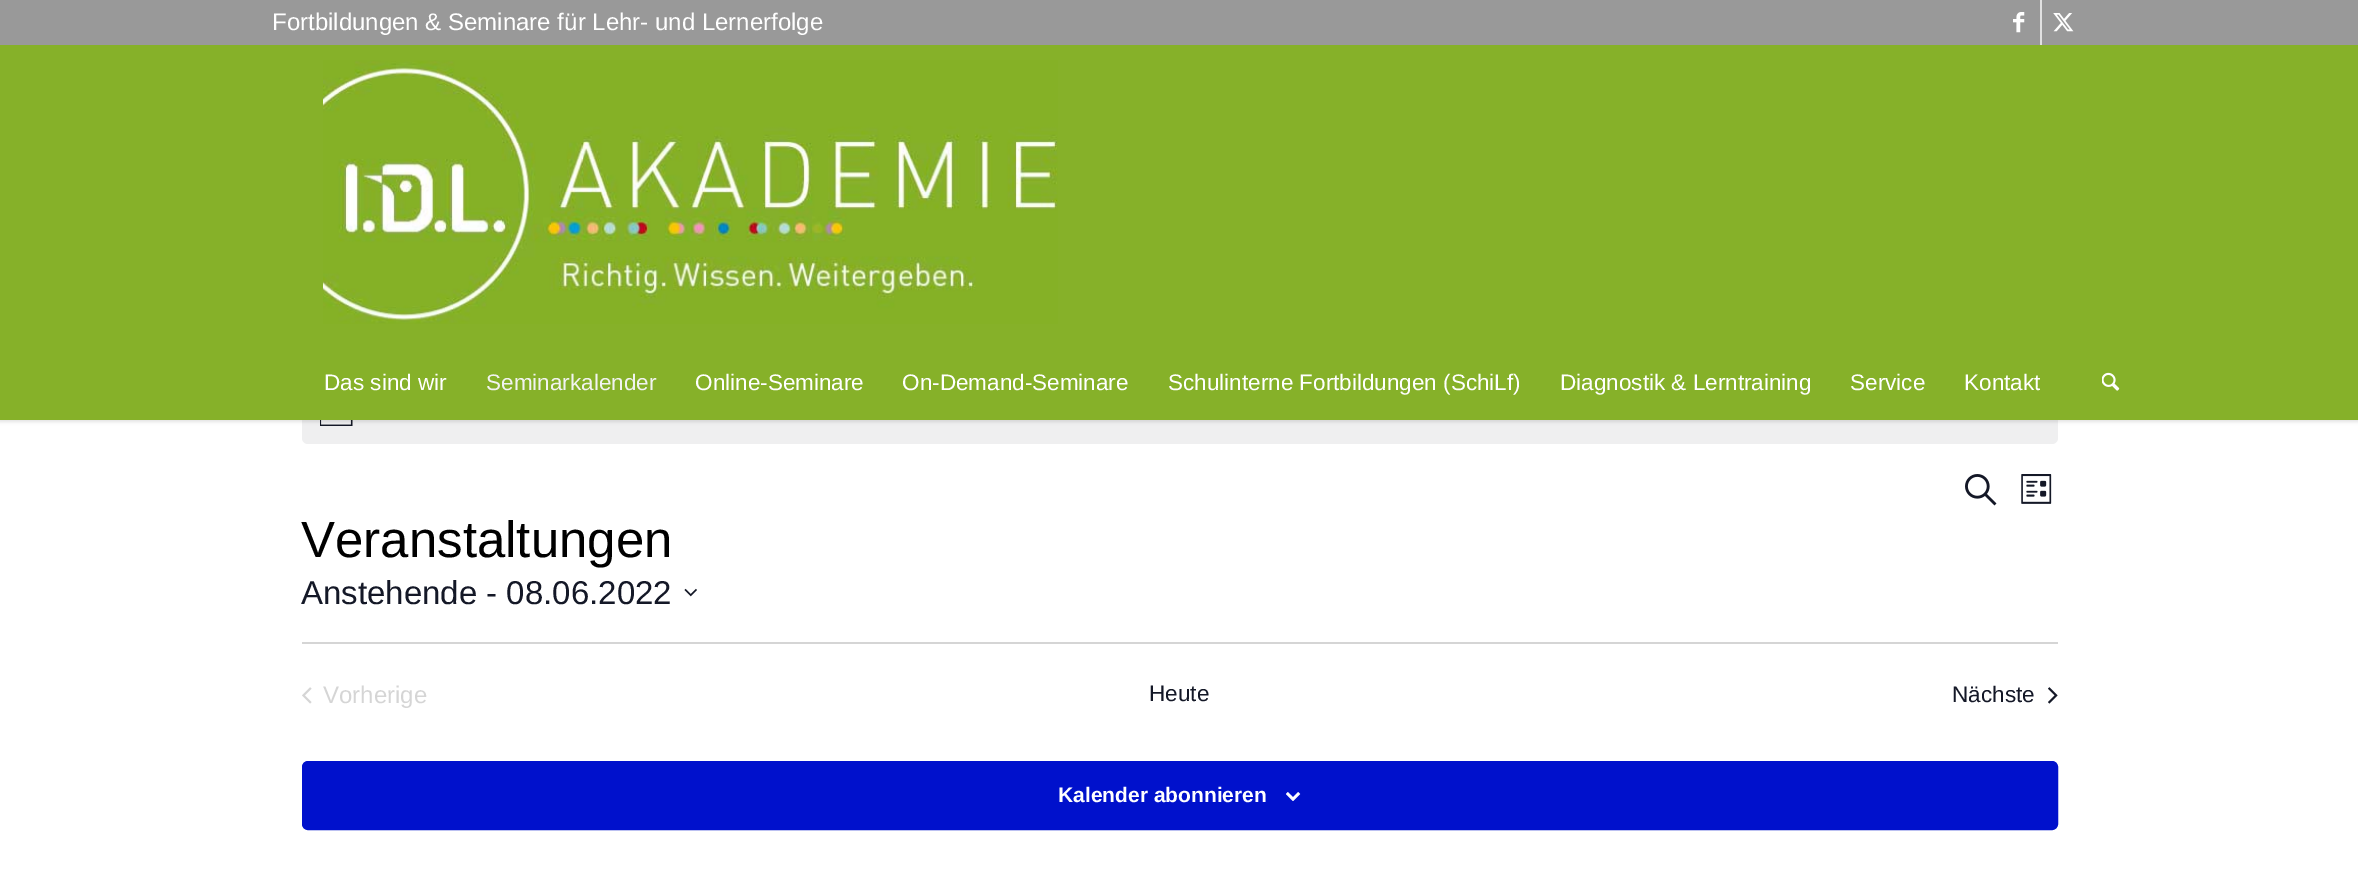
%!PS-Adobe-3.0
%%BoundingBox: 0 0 2358 881
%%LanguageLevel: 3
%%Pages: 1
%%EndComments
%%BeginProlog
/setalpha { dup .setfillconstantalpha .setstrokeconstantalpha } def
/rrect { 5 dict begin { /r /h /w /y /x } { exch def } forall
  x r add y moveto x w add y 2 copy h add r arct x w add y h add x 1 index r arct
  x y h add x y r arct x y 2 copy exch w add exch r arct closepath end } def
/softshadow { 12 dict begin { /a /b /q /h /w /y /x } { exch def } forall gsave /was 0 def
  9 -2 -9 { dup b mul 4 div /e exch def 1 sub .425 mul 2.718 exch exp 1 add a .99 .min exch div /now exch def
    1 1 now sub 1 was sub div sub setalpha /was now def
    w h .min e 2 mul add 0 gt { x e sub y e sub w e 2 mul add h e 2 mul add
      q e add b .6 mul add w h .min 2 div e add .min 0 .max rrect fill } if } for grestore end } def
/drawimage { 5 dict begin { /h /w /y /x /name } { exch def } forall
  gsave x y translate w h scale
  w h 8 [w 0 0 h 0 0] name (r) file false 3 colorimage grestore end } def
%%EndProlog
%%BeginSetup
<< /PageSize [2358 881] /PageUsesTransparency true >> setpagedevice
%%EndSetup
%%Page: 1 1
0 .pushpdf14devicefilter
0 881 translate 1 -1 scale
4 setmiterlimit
1 setgray
0 0 2358 881 rectfill
0.937 0.937 0.941 setrgbcolor
302 372 1756 72 6 rrect fill
(images/5.raw) 320 420 33 6 drawimage
0 setgray
-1 -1 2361 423 0 1.5 0.1 softshadow
0.6 setgray
0 0 2358 45 rectfill
0.882 setgray
2040 0 2 45 rectfill
(images/1.raw) 2013 12 12 21 drawimage
(images/2.raw) 2053 13 21 19 drawimage
0.525 0.694 0.161 setrgbcolor
0 45 2358 375 rectfill
(images/3.raw) 323 60 735 264 drawimage
(images/4.raw) 2102 372 18 19 drawimage
(images/6.raw) 1965 474 32 32 drawimage
(images/7.raw) 2021 474 31 30 drawimage
(images/8.raw) 684 588 13 9 drawimage
0.835 setgray
302 642 1756 2 rectfill
(images/9.raw) 302 687 10 17 drawimage
(images/10.raw) 2048 687 10 17 drawimage
0 0.067 0.8 setrgbcolor
303 762 1754 67 5 rrect gsave fill grestore
2 setlinewidth
stroke
(images/11.raw) 1286 792 15 9 drawimage
/LiberationSans-Regular [24 0 0 -24 0 0] selectfont
1 setgray
272 30 moveto (Fortbildungen & Seminare für Lehr- und Lernerfolge) show
/LiberationSans-Regular [22.5 0 0 -22.5 0 0] selectfont
324 390 moveto (Das sind wir) show
0.945 0.953 0.941 setrgbcolor
486 390 moveto (Seminarkalender) show
1 setgray
695 390 moveto (Online-Seminare) show
902 390 moveto (On-Demand-Seminare) show
1168 390 moveto (Schulinterne Fortbildungen \(SchiLf\)) show
1560 390 moveto (Diagnostik & Lerntraining) show
1850 390 moveto (Service) show
1964 390 moveto (Kontakt) show
/LiberationSans-Regular [51 0 0 -51 0 0] selectfont
0 setgray
301 557 moveto (Veranstaltungen) show
/LiberationSans-Regular [33 0 0 -33 0 0] selectfont
0.078 0.094 0.153 setrgbcolor
301 604 moveto (Anstehende - 08.06.2022) show
/LiberationSans-Regular [24 0 0 -24 0 0] selectfont
0.835 setgray
323 703 moveto (Vorherige) show
/LiberationSans-Regular [22.5 0 0 -22.5 0 0] selectfont
0.078 0.094 0.153 setrgbcolor
1149 701 moveto (Heute) show
1952 702 moveto (Nächste) show
/LiberationSans-Bold [21 0 0 -21 0 0] selectfont
1 setgray
1058 802 moveto (Kalender abonnieren) show
.poppdf14devicefilter showpage
%%EOF
